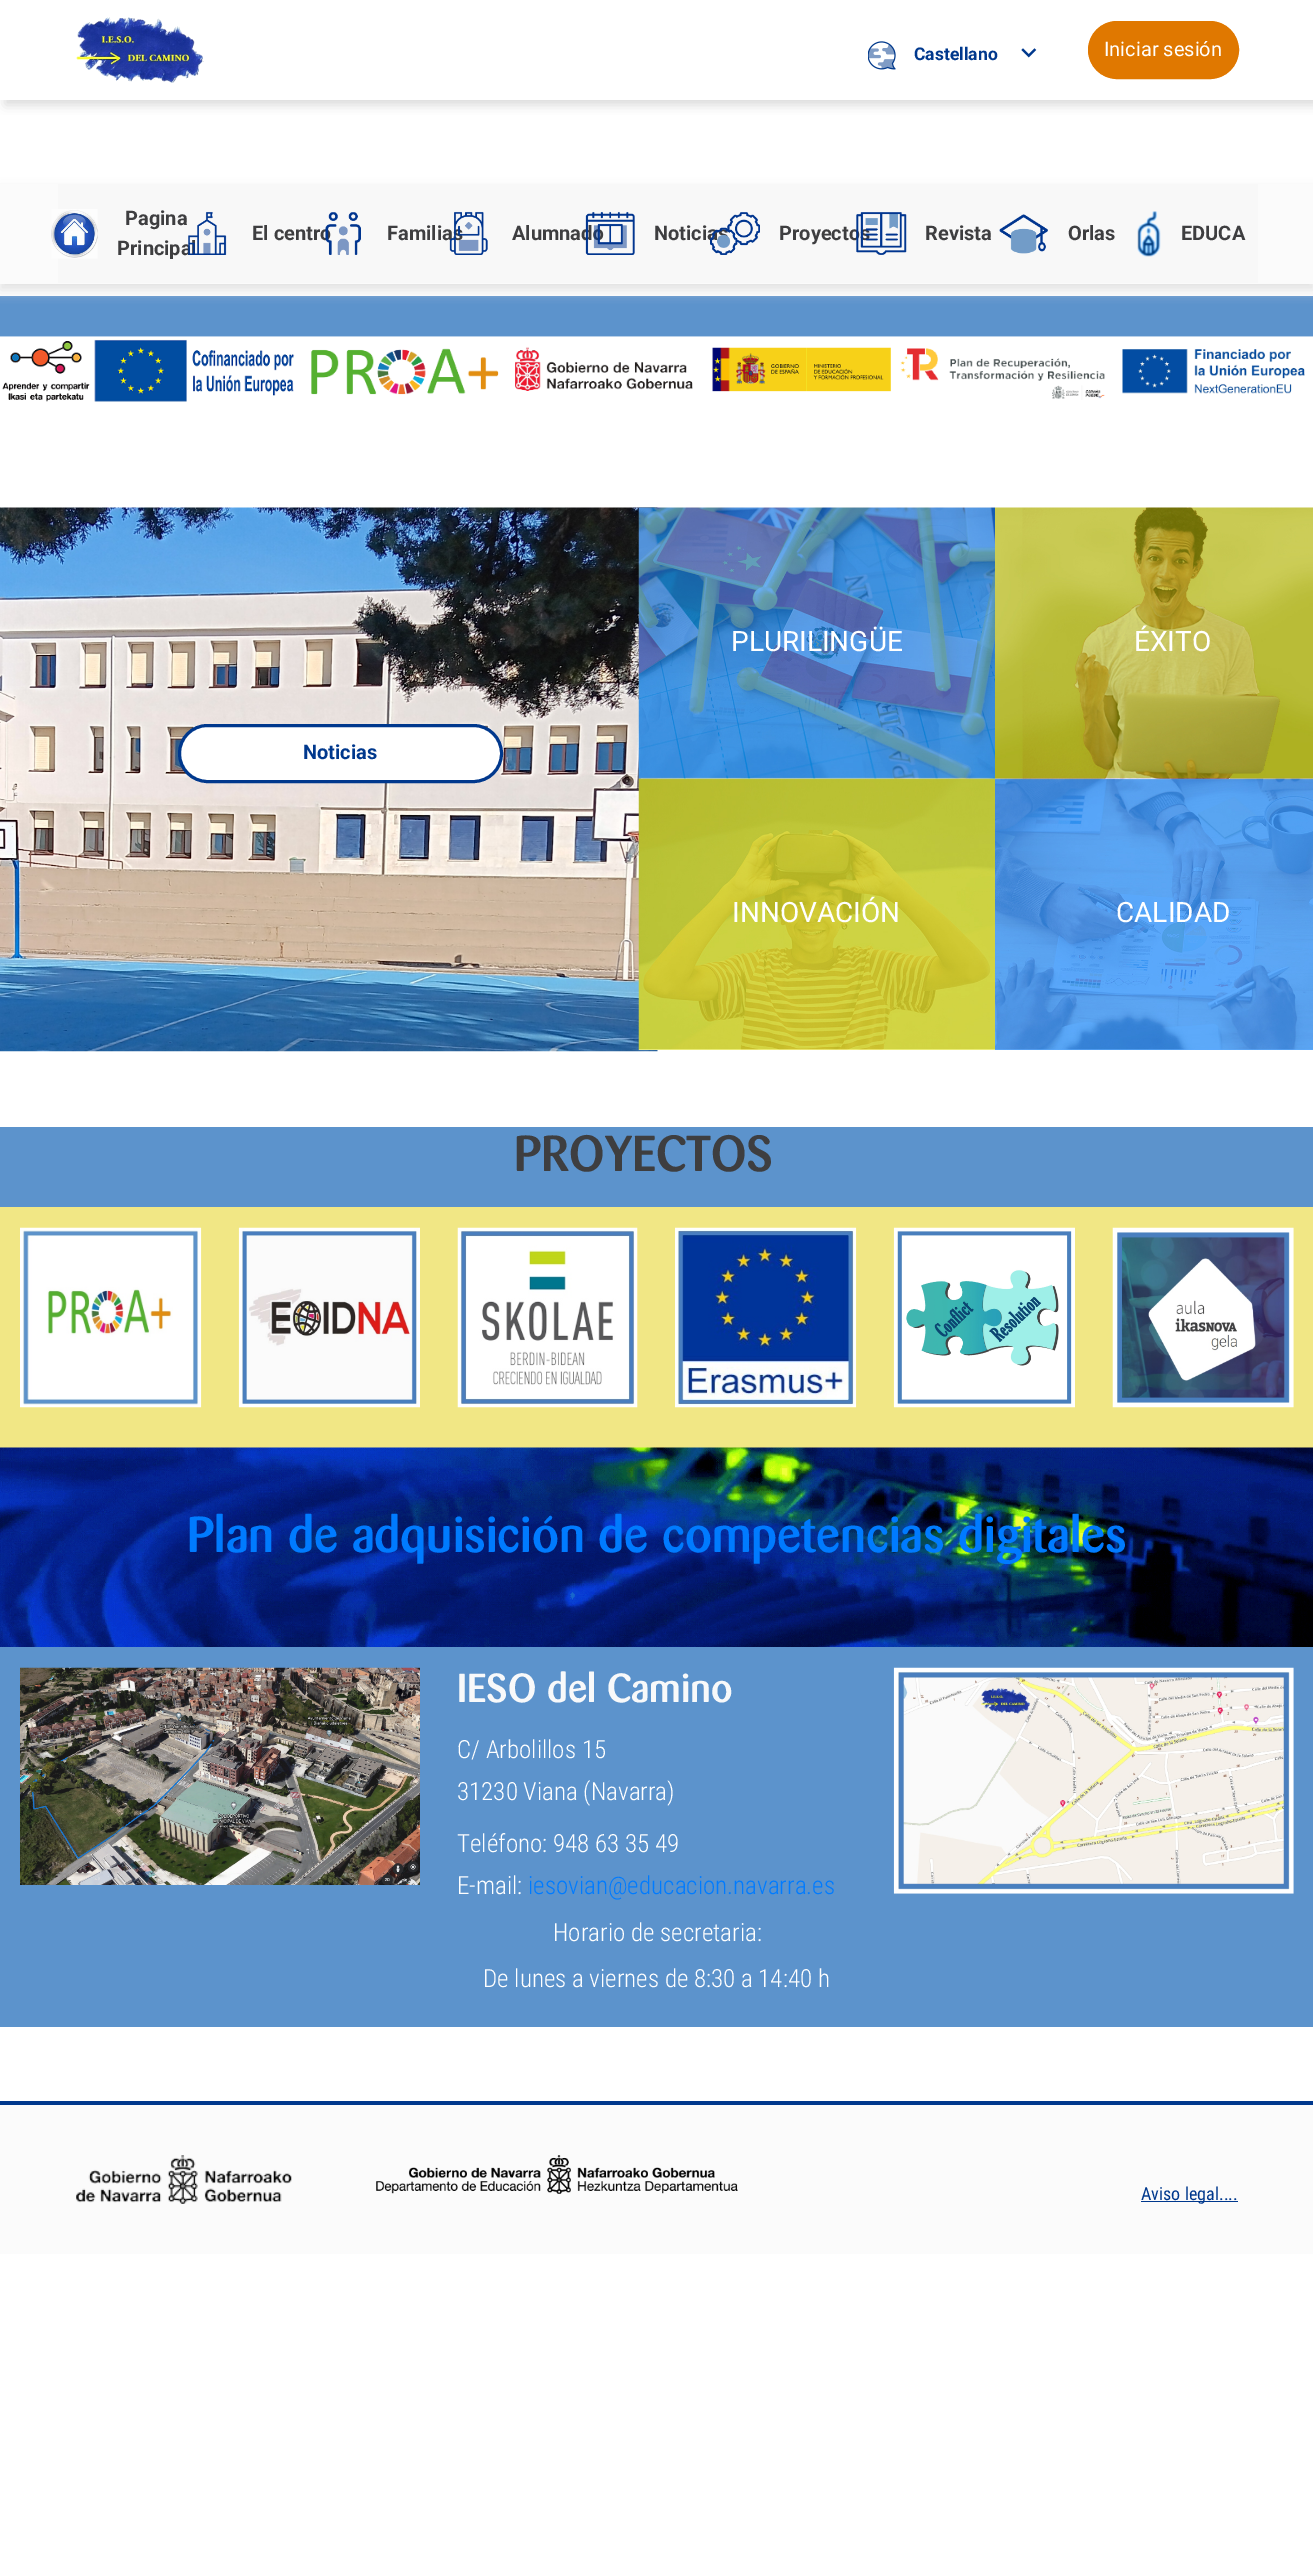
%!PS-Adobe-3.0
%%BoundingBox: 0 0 1313 2555
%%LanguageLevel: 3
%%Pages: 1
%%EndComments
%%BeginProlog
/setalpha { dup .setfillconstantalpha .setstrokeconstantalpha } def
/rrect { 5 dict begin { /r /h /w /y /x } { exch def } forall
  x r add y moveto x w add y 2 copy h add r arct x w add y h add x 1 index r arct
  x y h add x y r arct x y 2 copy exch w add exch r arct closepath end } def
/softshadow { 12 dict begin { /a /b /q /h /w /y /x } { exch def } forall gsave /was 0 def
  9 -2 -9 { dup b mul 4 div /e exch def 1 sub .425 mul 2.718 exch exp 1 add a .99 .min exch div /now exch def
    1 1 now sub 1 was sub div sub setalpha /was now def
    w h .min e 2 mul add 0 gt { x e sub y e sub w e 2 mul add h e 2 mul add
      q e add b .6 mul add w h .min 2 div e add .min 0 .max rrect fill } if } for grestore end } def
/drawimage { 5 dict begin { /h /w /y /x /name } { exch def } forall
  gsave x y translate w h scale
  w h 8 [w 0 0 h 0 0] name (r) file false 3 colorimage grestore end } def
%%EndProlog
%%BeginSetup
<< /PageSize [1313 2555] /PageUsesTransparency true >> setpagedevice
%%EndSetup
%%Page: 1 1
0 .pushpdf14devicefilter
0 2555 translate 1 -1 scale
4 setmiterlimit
1 setgray
0 0 1313 2555 rectfill
gsave
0 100 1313 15 rectclip
0.627 setgray
5 5 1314 100 0 6 0.4 softshadow
grestore
(images/1.raw) 76 17 128 66 drawimage
(images/2.raw) 868 41 28 29 drawimage
(images/3.raw) 1021 48 16 10 drawimage
0.878 0.471 0 setrgbcolor
1088.5 21.5 150 57 28.5 rrect gsave fill grestore
stroke
0.361 0.576 0.8 setrgbcolor
0 296 1313 41 rectfill
gsave
newpath 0 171 moveto 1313 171 lineto 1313 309 lineto 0 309 lineto closepath 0 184 moveto 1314 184 lineto 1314 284 lineto 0 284 lineto closepath eoclip newpath
0.878 setgray
0 190 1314 100 0 6 1 softshadow
grestore
0.2 setalpha
0.929 setgray
0 184 1313 100 rectfill
58 184 1200 99 rectfill
1 setalpha
(images/4.raw) 51 209 47 50 drawimage
(images/11.raw) 999 214 49 40 drawimage
(images/12.raw) 1137 211 24 46 drawimage
(images/13.raw) 0 336 1313 66 drawimage
(images/14.raw) 0 507 658 545 drawimage
1 setgray
179.5 725.5 322 56 28 rrect gsave fill grestore
0 0.22 0.553 setrgbcolor
3 setlinewidth
stroke
(images/15.raw) 638 507 357 272 drawimage
(images/16.raw) 995 507 318 272 drawimage
(images/17.raw) 638 778 357 272 drawimage
(images/18.raw) 995 778 318 272 drawimage
0.361 0.576 0.8 setrgbcolor
0 1127 1313 80 rectfill
0.945 0.906 0.522 setrgbcolor
0 1207 1313 241 rectfill
(images/19.raw) 20 1227 182 181 drawimage
(images/20.raw) 238 1227 182 181 drawimage
(images/21.raw) 457 1227 181 181 drawimage
(images/22.raw) 675 1227 182 181 drawimage
(images/23.raw) 893 1227 182 181 drawimage
(images/24.raw) 1112 1227 182 181 drawimage
(images/25.raw) 0 1447 1313 200 drawimage
0.361 0.576 0.8 setrgbcolor
0 1647 1313 380 rectfill
(images/26.raw) 20 1667 400 218 drawimage
(images/27.raw) 893 1667 401 227 drawimage
0.984 setgray
0 2105 1313 149 rectfill
0 0.22 0.553 setrgbcolor
0 2101 1313 4 rectfill
(images/28.raw) 76 2155 216 49 drawimage
(images/29.raw) 376 2155 362 39 drawimage
1141 2201 97 1 rectfill
/Roboto-Bold [17.5 0 0 -17.5 0 0] selectfont
914 60 moveto (Castellano) show
/Roboto-Regular [20 0 0 -20 0 0] selectfont
1 setgray
1104 56 moveto (Iniciar sesión) show
/Roboto-Bold [20 0 0 -20 0 0] selectfont
0.243 0.243 0.251 setrgbcolor
125 225 moveto (Pagina) show
117 255 moveto (Principa) show
(images/5.raw) 188 211 39 44 drawimage
252 240 moveto (El centro) show
(images/6.raw) 325 212 36 43 drawimage
387 240 moveto (Familias) show
(images/7.raw) 449 211 39 44 drawimage
512 240 moveto (Alumnado) show
(images/8.raw) 585 211 50 44 drawimage
654 240 moveto (Noticia) show
(images/9.raw) 710 212 50 43 drawimage
779 240 moveto (Proyectos) show
(images/10.raw) 856 212 51 43 drawimage
925 240 moveto (Revista) show
1068 240 moveto (Orlas) show
1181 240 moveto (EDUCA) show
0 0.22 0.553 setrgbcolor
303 759 moveto (Noticias) show
/Roboto-Regular [28 0 0 -28 0 0] selectfont
1 setgray
731 651 moveto (PLURILINGÜE) show
1134 651 moveto (ÉXITO) show
732 922 moveto (INNOVACIÓN) show
1116 922 moveto (CALIDAD) show
/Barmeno-Medium [50 0 0 -50 0 0] selectfont
0.243 0.243 0.251 setrgbcolor
514 1171 moveto (PROYECTOS) show
0 0.482 1 setrgbcolor
187 1552 moveto (Plan de adquisición de competencias digitales) show
/Barmeno-Medium [40 0 0 -40 0 0] selectfont
0.973 0.976 0.98 setrgbcolor
457 1702 moveto (IESO del Camino) show
/RobotoCondensed-Light [25 0 0 -25 0 0] selectfont
1 setgray
457 1758 moveto (C/ Arbolillos 15) show
457 1800 moveto (31230 Viana \(Navarra\)) show
457 1852 moveto (Teléfono: 948 63 35 49) show
457 1894 moveto (E-mail:) show
0 0.482 1 setrgbcolor
528 1894 moveto (iesovian@educacion.navarra.es) show
1 setgray
553 1941 moveto (Horario de secretaria:) show
483 1987 moveto (De lunes a viernes de 8:30 a 14:40 h) show
/RobotoCondensed-Regular [18 0 0 -18 0 0] selectfont
0 0.22 0.553 setrgbcolor
1141 2200 moveto (Aviso legal....) show
.poppdf14devicefilter showpage
%%EOF
